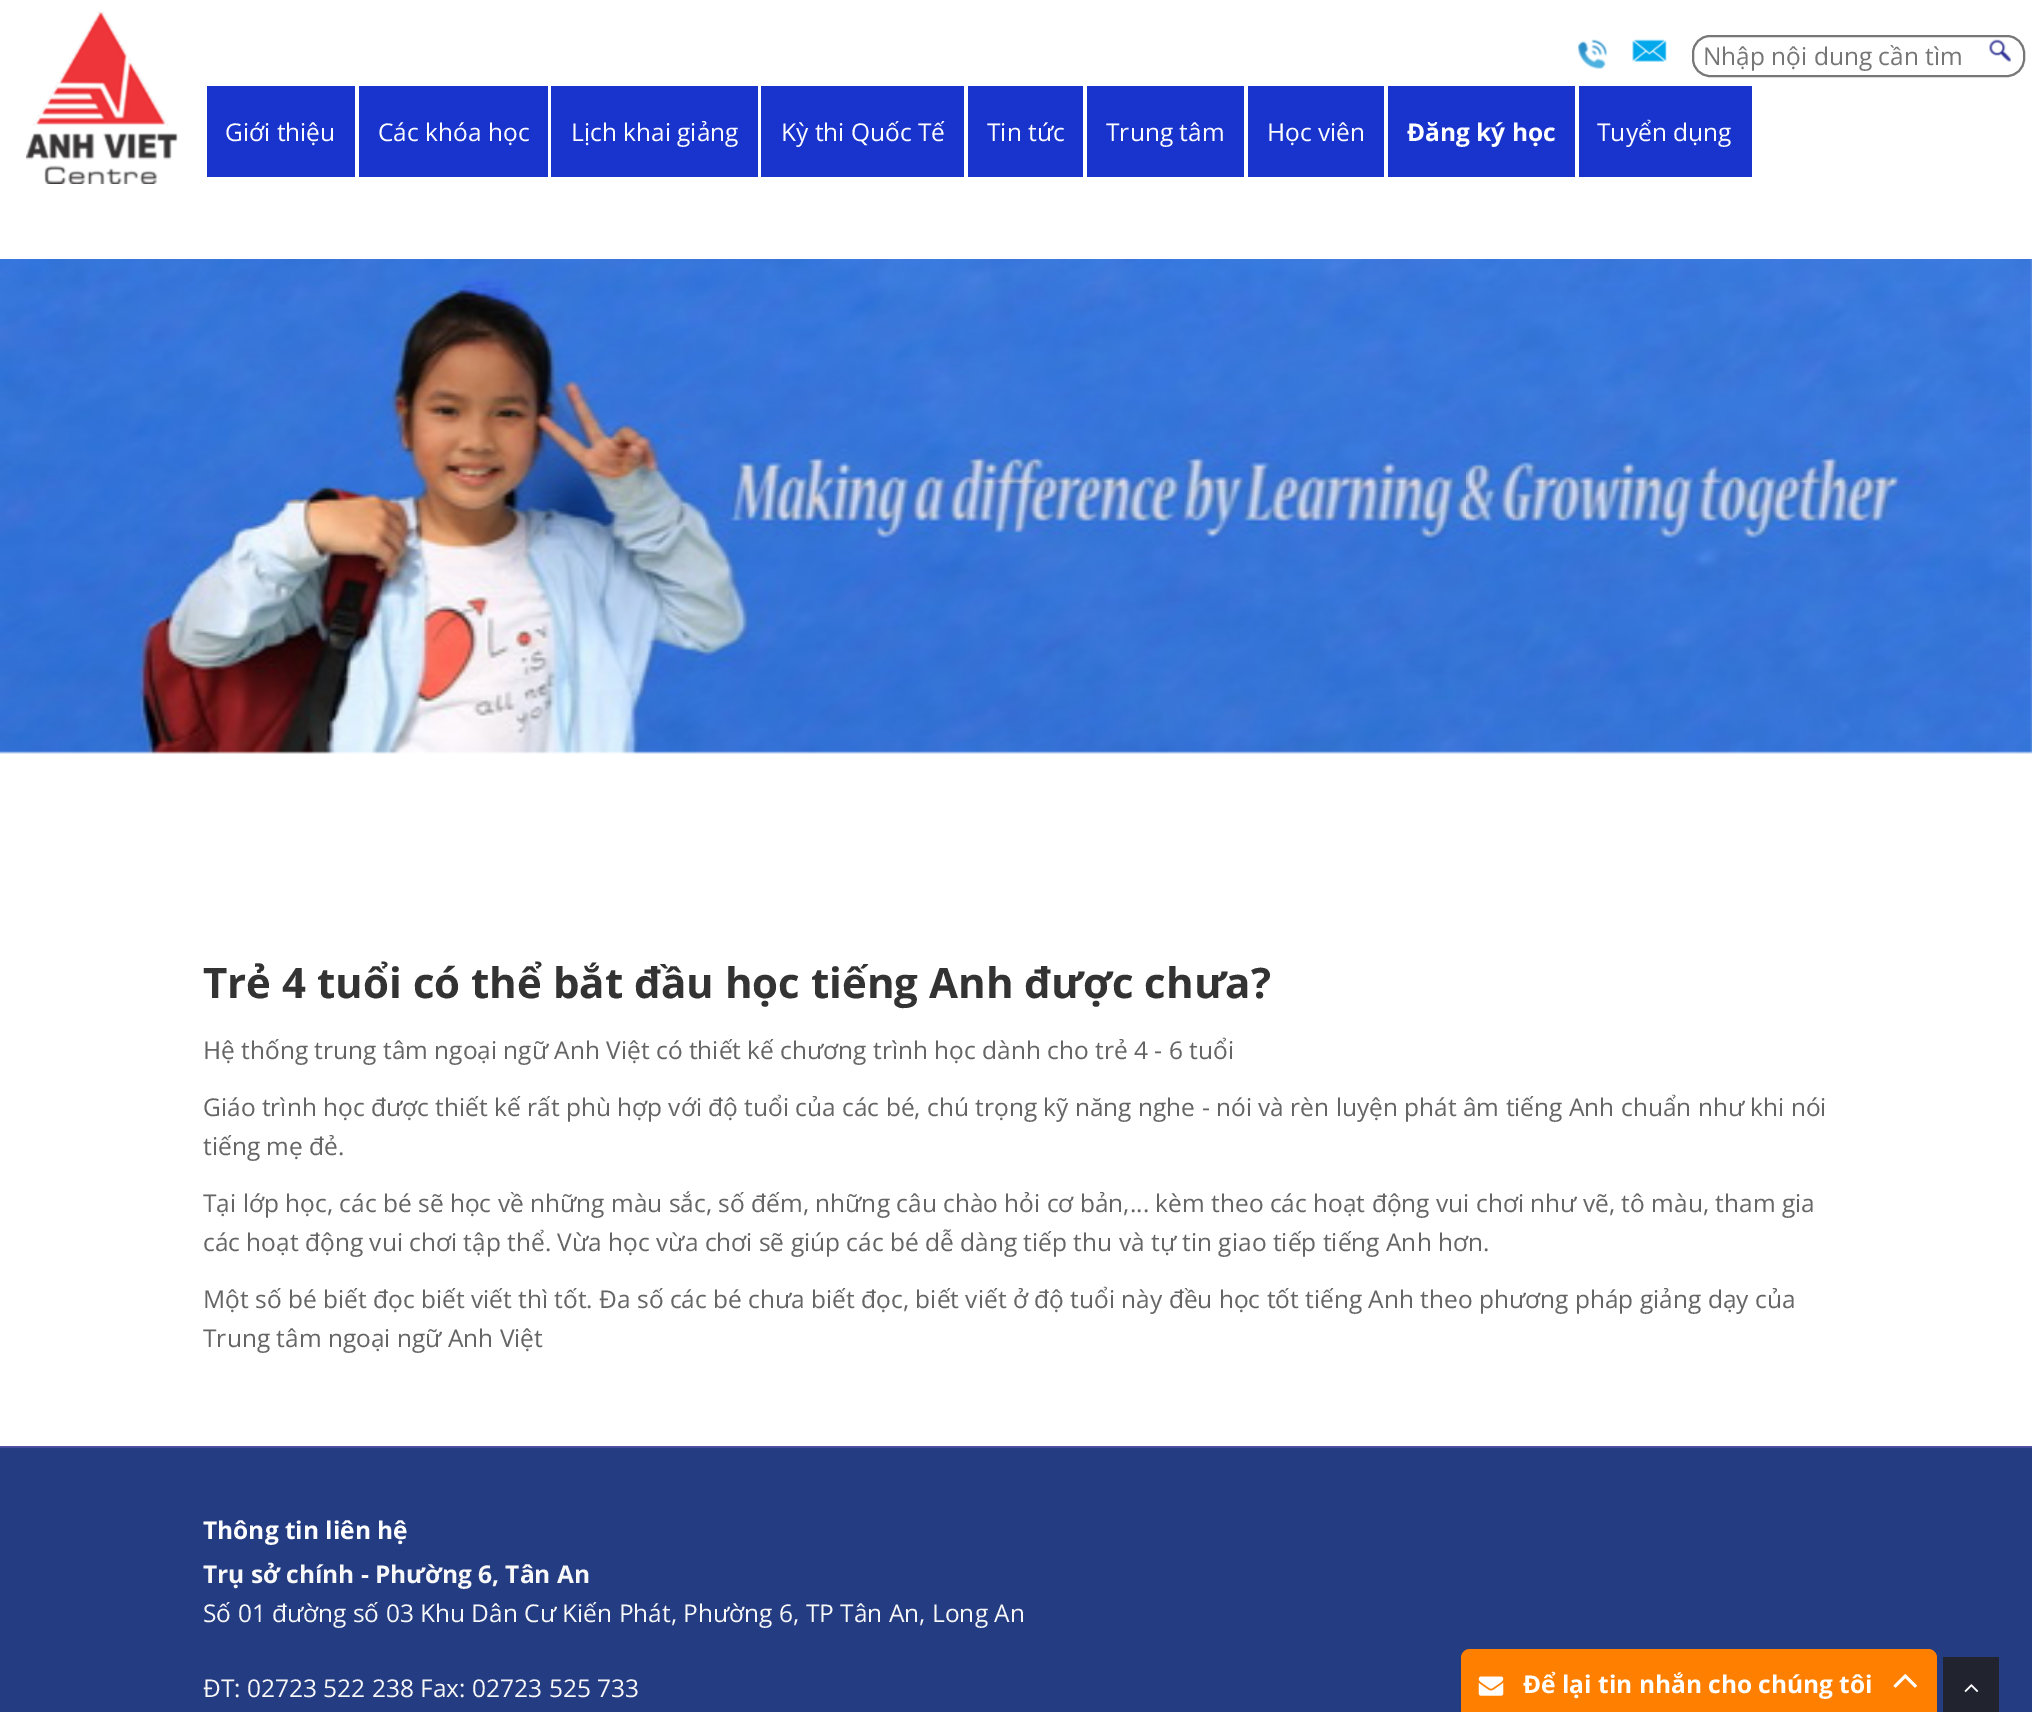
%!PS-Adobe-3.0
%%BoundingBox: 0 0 2032 1712
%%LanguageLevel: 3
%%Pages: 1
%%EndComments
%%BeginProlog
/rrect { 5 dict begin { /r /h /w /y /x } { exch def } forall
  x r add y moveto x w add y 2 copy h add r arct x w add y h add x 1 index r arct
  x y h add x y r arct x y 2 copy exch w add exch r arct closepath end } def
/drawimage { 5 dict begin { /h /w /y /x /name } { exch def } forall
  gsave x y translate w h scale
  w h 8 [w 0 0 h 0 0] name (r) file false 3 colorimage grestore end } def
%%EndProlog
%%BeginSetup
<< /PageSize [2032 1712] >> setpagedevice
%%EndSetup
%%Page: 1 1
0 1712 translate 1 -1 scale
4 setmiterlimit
1 setgray
0 0 2032 1712 rectfill
(images/1.raw) 26 9 152 175 drawimage
(images/2.raw) 1578 39 30 30 drawimage
(images/3.raw) 1632 39 35 23 drawimage
0.467 setgray
2 setlinewidth
1693 36 331 40 17 rrect stroke
(images/4.raw) 1989 39 22 23 drawimage
0.098 0.204 0.8 setrgbcolor
207 86 148 91 rectfill
359 86 189 91 rectfill
551 86 207 91 rectfill
761 86 203 91 rectfill
968 86 115 91 rectfill
1087 86 157 91 rectfill
1248 86 136 91 rectfill
1388 86 187 91 rectfill
1579 86 173 91 rectfill
(images/5.raw) 0 259 2032 495 drawimage
(images/6.raw) 0 1446 2032 266 drawimage
0.129 0.137 0.184 setrgbcolor
1943 1657 56 55 rectfill
(images/7.raw) 1964 1684 15 8 drawimage
1 0.502 0 setrgbcolor
newpath 1470 1649 moveto 1928 1649 lineto 1933 1649 1937 1653 1937 1658 curveto 1937 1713 lineto 1461 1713 lineto 1461 1658 lineto 1461 1653 1465 1649 1470 1649 curveto closepath fill
(images/8.raw) 1478 1676 26 20 drawimage
(images/9.raw) 1893 1674 24 14 drawimage
/OpenSans-Regular [24.5 0 0 -24.5 0 0] selectfont
0.459 setgray
1703 65 moveto (Nhập nội dung cần tìm) show
1 setgray
225 141 moveto (Giới thiệu) show
378 141 moveto (Các khóa học) show
571 141 moveto (Lịch khai giảng) show
781 141 moveto (Kỳ thi Quốc Tế) show
987 141 moveto (Tin tức) show
1106 141 moveto (Trung tâm) show
1267 141 moveto (Học viên) show
/OpenSans-Bold [24.5 0 0 -24.5 0 0] selectfont
1407 141 moveto (Đăng ký học) show
/OpenSans-Regular [24.5 0 0 -24.5 0 0] selectfont
1597 141 moveto (Tuyển dụng) show
/OpenSans-Bold [42 0 0 -42 0 0] selectfont
0.2 setgray
203 998 moveto (Trẻ 4 tuổi có thể bắt đầu học tiếng Anh được chưa?) show
/OpenSans-Regular [24.5 0 0 -24.5 0 0] selectfont
0.396 setgray
203 1059 moveto (Hệ thống trung tâm ngoại ngữ Anh Việt có thiết kế chương trình học dành cho trẻ 4 - 6 tuổi) show
203 1116 moveto (Giáo trình học được thiết kế rất phù hợp với độ tuổi của các bé, chú trọng kỹ năng nghe - nói và rèn luyện phát âm tiếng Anh chuẩn như khi nói) show
203 1155 moveto (tiếng mẹ đẻ.) show
203 1212 moveto (Tại lớp học, các bé sẽ học về những màu sắc, số đếm, những câu chào hỏi cơ bản,... kèm theo các hoạt động vui chơi như vẽ, tô màu, tham gia) show
203 1251 moveto (các hoạt động vui chơi tập thể. Vừa học vừa chơi sẽ giúp các bé dễ dàng tiếp thu và tự tin giao tiếp tiếng Anh hơn.) show
203 1308 moveto (Một số bé biết đọc biết viết thì tốt. Đa số các bé chưa biết đọc, biết viết ở độ tuổi này đều học tốt tiếng Anh theo phương pháp giảng dạy của) show
203 1347 moveto (Trung tâm ngoại ngữ Anh Việt) show
/OpenSans-Bold [24.5 0 0 -24.5 0 0] selectfont
1 setgray
203 1539 moveto (Thông tin liên hệ) show
0.973 setgray
203 1583 moveto (Trụ sở chính - Phường 6, Tân An) show
/OpenSans-Regular [24.5 0 0 -24.5 0 0] selectfont
203 1622 moveto (Số 01 đường số 03 Khu Dân Cư Kiến Phát, Phường 6, TP Tân An, Long An) show
203 1697 moveto (ĐT: 02723 522 238 Fax: 02723 525 733) show
/OpenSans-Bold [24.5 0 0 -24.5 0 0] selectfont
1 setgray
1523 1693 moveto (Để lại tin nhắn cho chúng tôi) show
showpage
%%EOF
